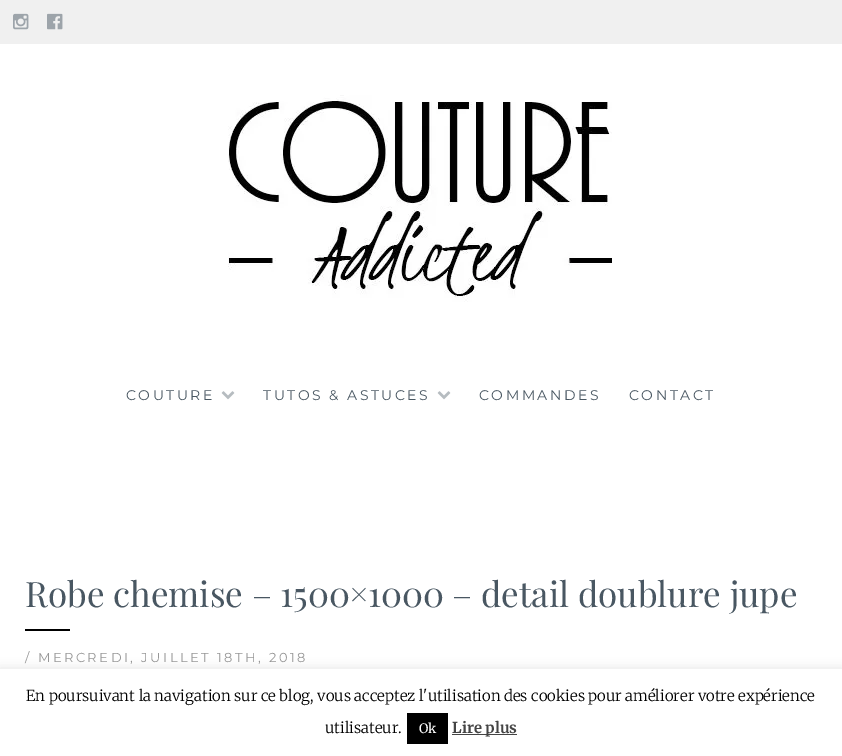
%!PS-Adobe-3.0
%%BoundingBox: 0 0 842 756
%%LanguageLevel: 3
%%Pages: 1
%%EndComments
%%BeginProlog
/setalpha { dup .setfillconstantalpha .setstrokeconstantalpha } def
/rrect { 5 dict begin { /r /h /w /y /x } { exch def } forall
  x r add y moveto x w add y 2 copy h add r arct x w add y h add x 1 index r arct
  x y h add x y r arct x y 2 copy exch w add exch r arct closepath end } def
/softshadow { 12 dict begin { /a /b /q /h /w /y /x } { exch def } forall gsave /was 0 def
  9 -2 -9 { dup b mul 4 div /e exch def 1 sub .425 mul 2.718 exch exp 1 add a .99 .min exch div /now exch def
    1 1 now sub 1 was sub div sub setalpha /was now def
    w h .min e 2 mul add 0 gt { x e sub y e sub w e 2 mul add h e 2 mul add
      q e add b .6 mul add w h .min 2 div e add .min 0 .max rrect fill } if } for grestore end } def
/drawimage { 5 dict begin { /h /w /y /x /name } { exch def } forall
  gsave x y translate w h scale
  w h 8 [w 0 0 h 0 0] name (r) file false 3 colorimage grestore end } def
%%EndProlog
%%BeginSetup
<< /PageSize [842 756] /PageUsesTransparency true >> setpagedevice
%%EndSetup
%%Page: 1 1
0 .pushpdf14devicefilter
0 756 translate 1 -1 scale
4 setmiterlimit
1 setgray
0 0 842 756 rectfill
0.941 setgray
0 0 842 44 rectfill
(images/1.raw) 13 13 16 17 drawimage
(images/2.raw) 47 13 16 17 drawimage
(images/3.raw) 228 95 384 207 drawimage
(images/4.raw) 221 391 14 9 drawimage
(images/4.raw) 437 391 14 9 drawimage
0 setgray
25 629 45 2 rectfill
0.675 0.671 0.671 setrgbcolor
0 668 842 87 0 5 0.3 softshadow
1 setgray
0 669 842 87 rectfill
0 setgray
407 713 41 31 rectfill
0.267 setgray
452 734 65 1 rectfill
/Montserrat-Regular [14 0 0 -14 0 0] selectfont
0.286 0.341 0.384 setrgbcolor
126 400 moveto 2.5 0 (COUTURE) ashow
263 400 moveto 2.5 0 (TUTOS & ASTUCES) ashow
479 400 moveto 2.5 0 (COMMANDES) ashow
629 400 moveto 2.5 0 (CONTACT) ashow
/PlayfairDisplay-Regular [35 0 0 -35 0 0] selectfont
25 607 moveto (Robe chemise – 1500×1000 – detail doublure jupe) show
/Montserrat-Regular [13 0 0 -13 0 0] selectfont
0.588 setgray
25 662 moveto 2.5 0 (/ MERCREDI, JUILLET 18TH, 2018) ashow
/Merriweather-Light [15 0 0 -15 0 0] selectfont
0 setgray
26 701 moveto (En poursuivant la navigation sur ce blog, vous acceptez l'utilisation des cookies pour améliorer votre expérience) show
325 733 moveto (utilisateur.) show
/Merriweather-Regular [13 0 0 -13 0 0] selectfont
1 setgray
419 733 moveto (Ok) show
/Merriweather-Bold [15 0 0 -15 0 0] selectfont
0.267 setgray
452 733 moveto (Lire plus) show
.poppdf14devicefilter showpage
%%EOF
